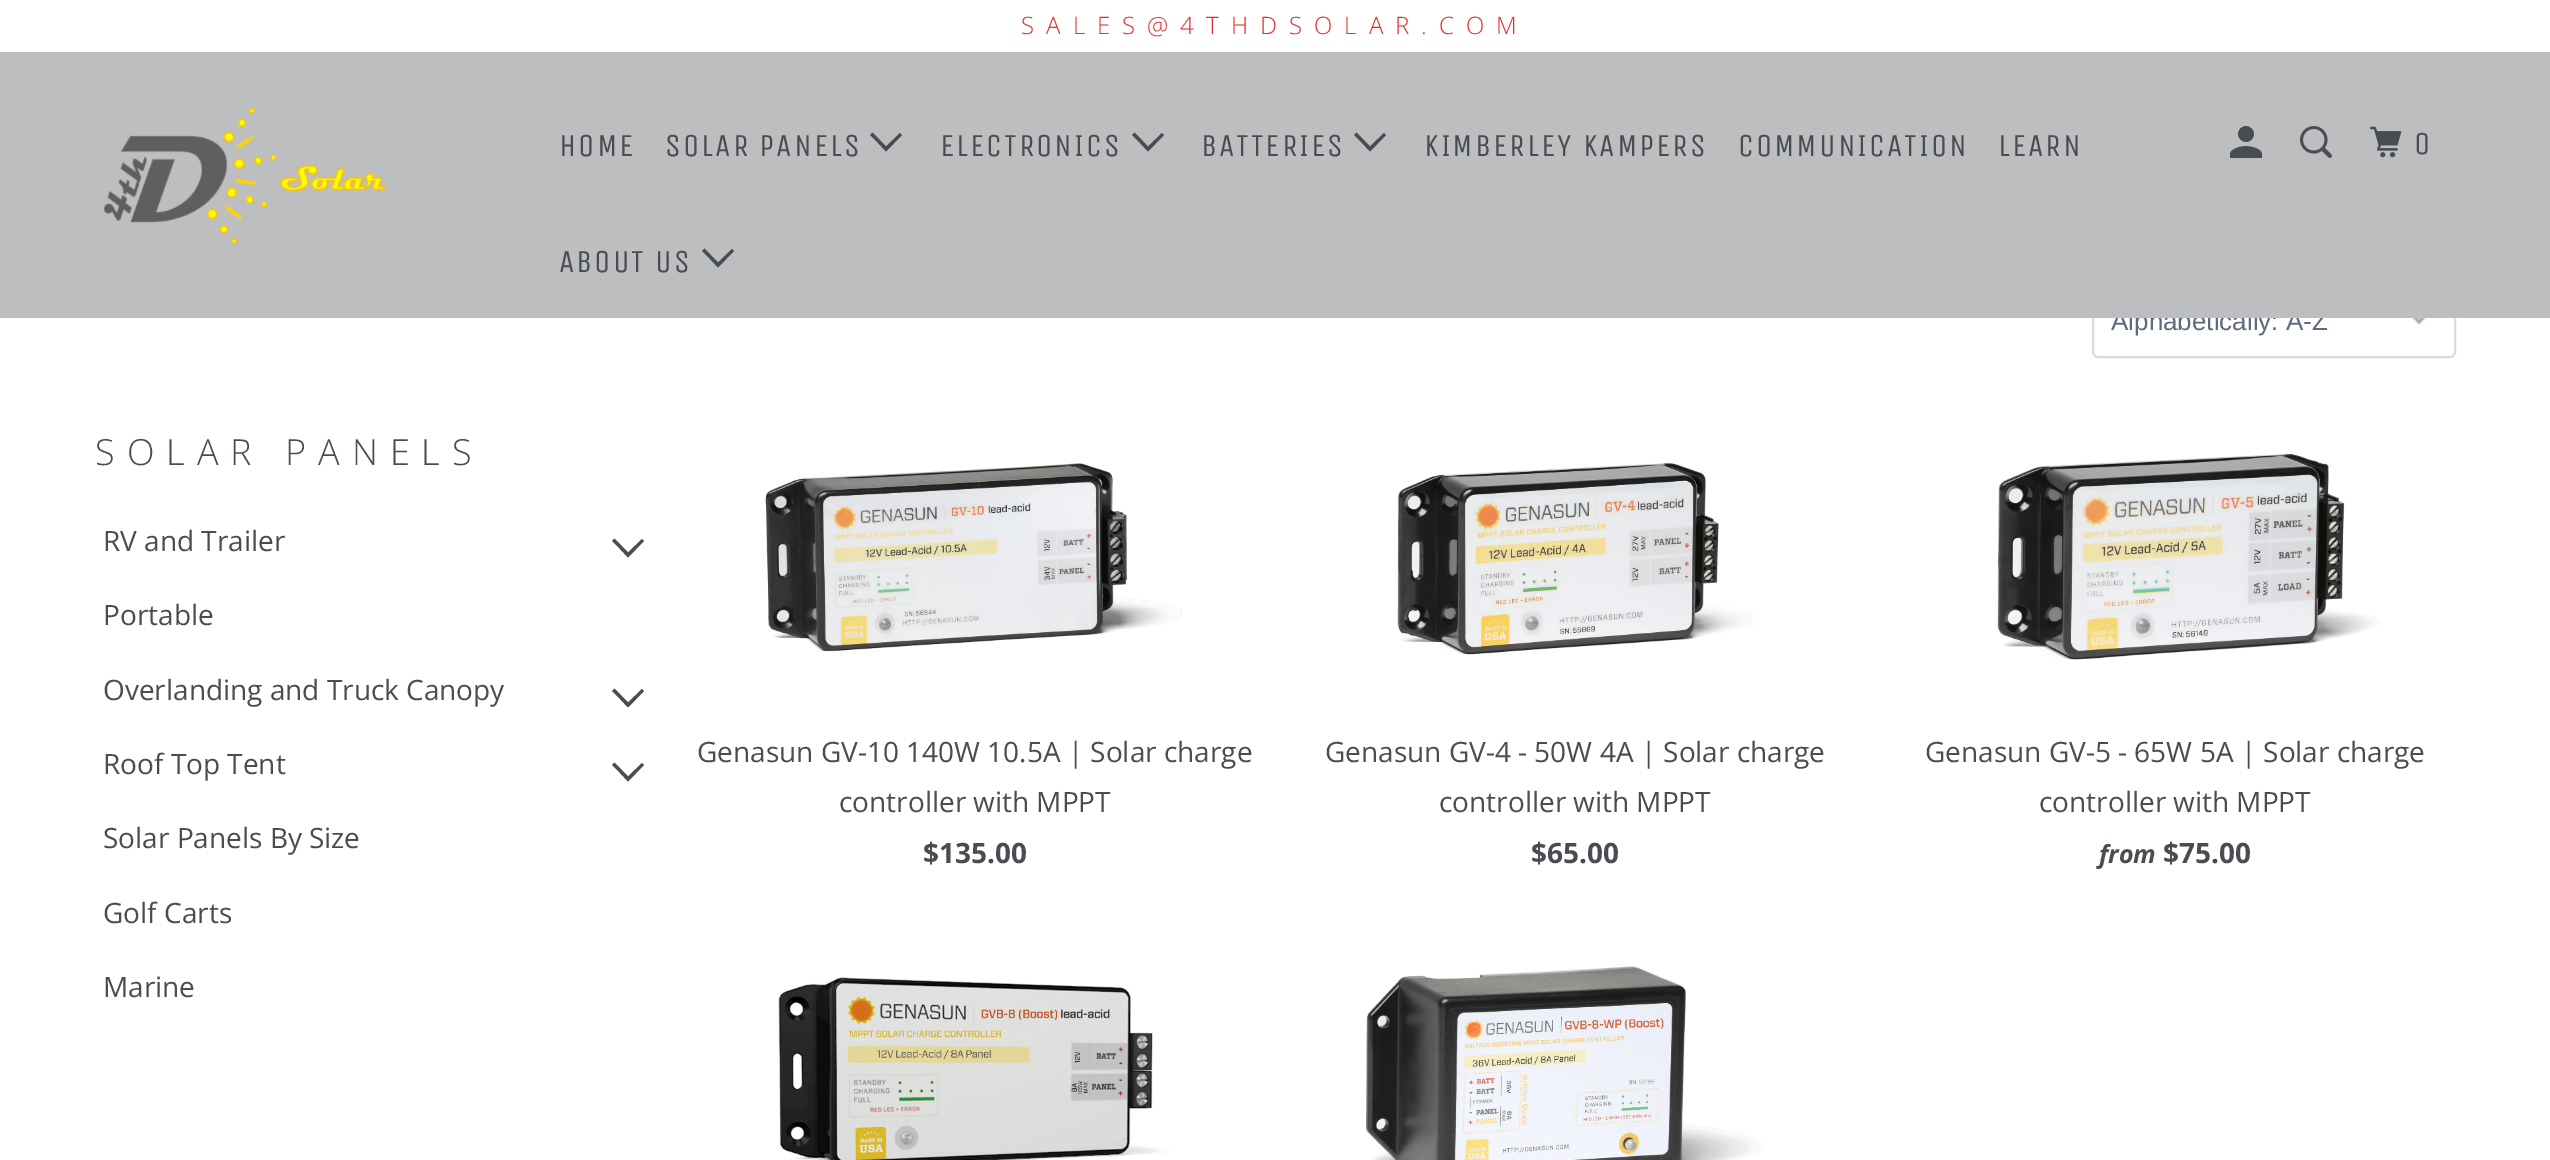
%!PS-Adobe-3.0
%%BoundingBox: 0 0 2550 1160
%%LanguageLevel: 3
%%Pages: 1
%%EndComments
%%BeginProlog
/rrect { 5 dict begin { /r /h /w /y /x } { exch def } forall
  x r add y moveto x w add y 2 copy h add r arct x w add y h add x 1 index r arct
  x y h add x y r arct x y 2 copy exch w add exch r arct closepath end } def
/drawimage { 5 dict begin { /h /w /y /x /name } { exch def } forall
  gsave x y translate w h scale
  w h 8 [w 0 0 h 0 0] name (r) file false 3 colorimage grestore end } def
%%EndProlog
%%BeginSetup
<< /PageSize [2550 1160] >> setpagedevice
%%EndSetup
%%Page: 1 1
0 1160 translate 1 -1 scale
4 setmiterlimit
1 setgray
0 0 2550 1160 rectfill
(images/5.raw) 2411 318 16 7 drawimage
0.851 0.859 0.863 setrgbcolor
2 setlinewidth
2093 279 362 78 5 rrect stroke
0.286 0.298 0.314 setrgbcolor
newpath 620 549 moveto 612 541 lineto 614.5 538.5 lineto 628 552.5 lineto 642 539 lineto 644 541 lineto 628 557.5 lineto closepath fill
newpath 620 699 moveto 612 691 lineto 614.5 688.5 lineto 628 702.5 lineto 642 689 lineto 644 691 lineto 628 707.5 lineto closepath fill
newpath 620 773 moveto 612 765 lineto 614.5 762.5 lineto 628 776.5 lineto 642 763 lineto 644 765 lineto 628 781.5 lineto closepath fill
(images/6.raw) 765 463 418 189 drawimage
(images/7.raw) 1397 462 356 193 drawimage
(images/8.raw) 1997 453 384 207 drawimage
(images/9.raw) 778 977 392 183 drawimage
(images/10.raw) 1366 966 398 194 drawimage
/OpenSans-Light [24 0 0 -24 0 0] selectfont
0.89 0.173 0.169 setrgbcolor
1021 34 moveto 12 0 (SALES@4THDSOLAR.COM) ashow
/LiberationSans-Regular [26 0 0 -26 0 0] selectfont
0.373 0.416 0.49 setrgbcolor
2111 330 moveto (Alphabetically: A-Z) show
0.737 0.745 0.753 setrgbcolor
0 52 2550 266 rectfill
0.286 0.298 0.314 setrgbcolor
newpath 710 259 moveto 702 251 lineto 704.5 248.5 lineto 718 262.5 lineto 732 249 lineto 734 251 lineto 718 267.5 lineto closepath fill
/UnicaOne-Regular [32 0 0 -32 0 0] selectfont
559 272 moveto 2 0 (ABOUT US) ashow
1998 156 moveto 2 0 (LEARN) ashow
1738 156 moveto 2 0 (COMMUNICATION) ashow
1424 156 moveto 2 0 (KIMBERLEY KAMPERS) ashow
newpath 1362 143 moveto 1354 135 lineto 1356.5 132.5 lineto 1370 146.5 lineto 1384 133 lineto 1386 135 lineto 1370 151.5 lineto closepath fill
1201 156 moveto 2 0 (BATTERIES) ashow
newpath 1140 143 moveto 1132 135 lineto 1134.5 132.5 lineto 1148 146.5 lineto 1162 133 lineto 1164 135 lineto 1148 151.5 lineto closepath fill
940 156 moveto 2 0 (ELECTRONICS) ashow
newpath 878 143 moveto 870 135 lineto 872.5 132.5 lineto 886 146.5 lineto 900 133 lineto 902 135 lineto 886 151.5 lineto closepath fill
665 156 moveto 2 0 (SOLAR PANELS) ashow
559 156 moveto 2 0 (HOME) ashow
2414 154 moveto 2 0 (0) ashow
(images/4.raw) 2370 126 32 32 drawimage
(images/3.raw) 2300 126 32 32 drawimage
(images/2.raw) 2230 126 32 32 drawimage
(images/1.raw) 103 108 284 136 drawimage
/OpenSans-Light [36 0 0 -36 0 0] selectfont
95 465 moveto 12 0 (SOLAR PANELS) ashow
/OpenSans-Regular [28 0 0 -28 0 0] selectfont
103 551 moveto (RV and Trailer) show
103 625 moveto (Portable) show
103 700 moveto (Overlanding and Truck Canopy) show
103 774 moveto (Roof Top Tent) show
103 848 moveto (Solar Panels By Size) show
103 923 moveto (Golf Carts) show
103 997 moveto (Marine) show
697 762 moveto (Genasun GV-10 140W 10.5A | Solar charge) show
839 812 moveto (controller with MPPT) show
/OpenSans-Bold [28 0 0 -28 0 0] selectfont
923 863 moveto ($135.00) show
/OpenSans-Regular [28 0 0 -28 0 0] selectfont
1325 762 moveto (Genasun GV-4 - 50W 4A | Solar charge) show
1439 812 moveto (controller with MPPT) show
/OpenSans-Bold [28 0 0 -28 0 0] selectfont
1531 863 moveto ($65.00) show
/OpenSans-Regular [28 0 0 -28 0 0] selectfont
1925 762 moveto (Genasun GV-5 - 65W 5A | Solar charge) show
2039 812 moveto (controller with MPPT) show
/OpenSans-BoldItalic [25 0 0 -25 0 0] selectfont
2099 863 moveto (from) show
/OpenSans-Bold [28 0 0 -28 0 0] selectfont
2163 863 moveto ($75.00) show
showpage
%%EOF
